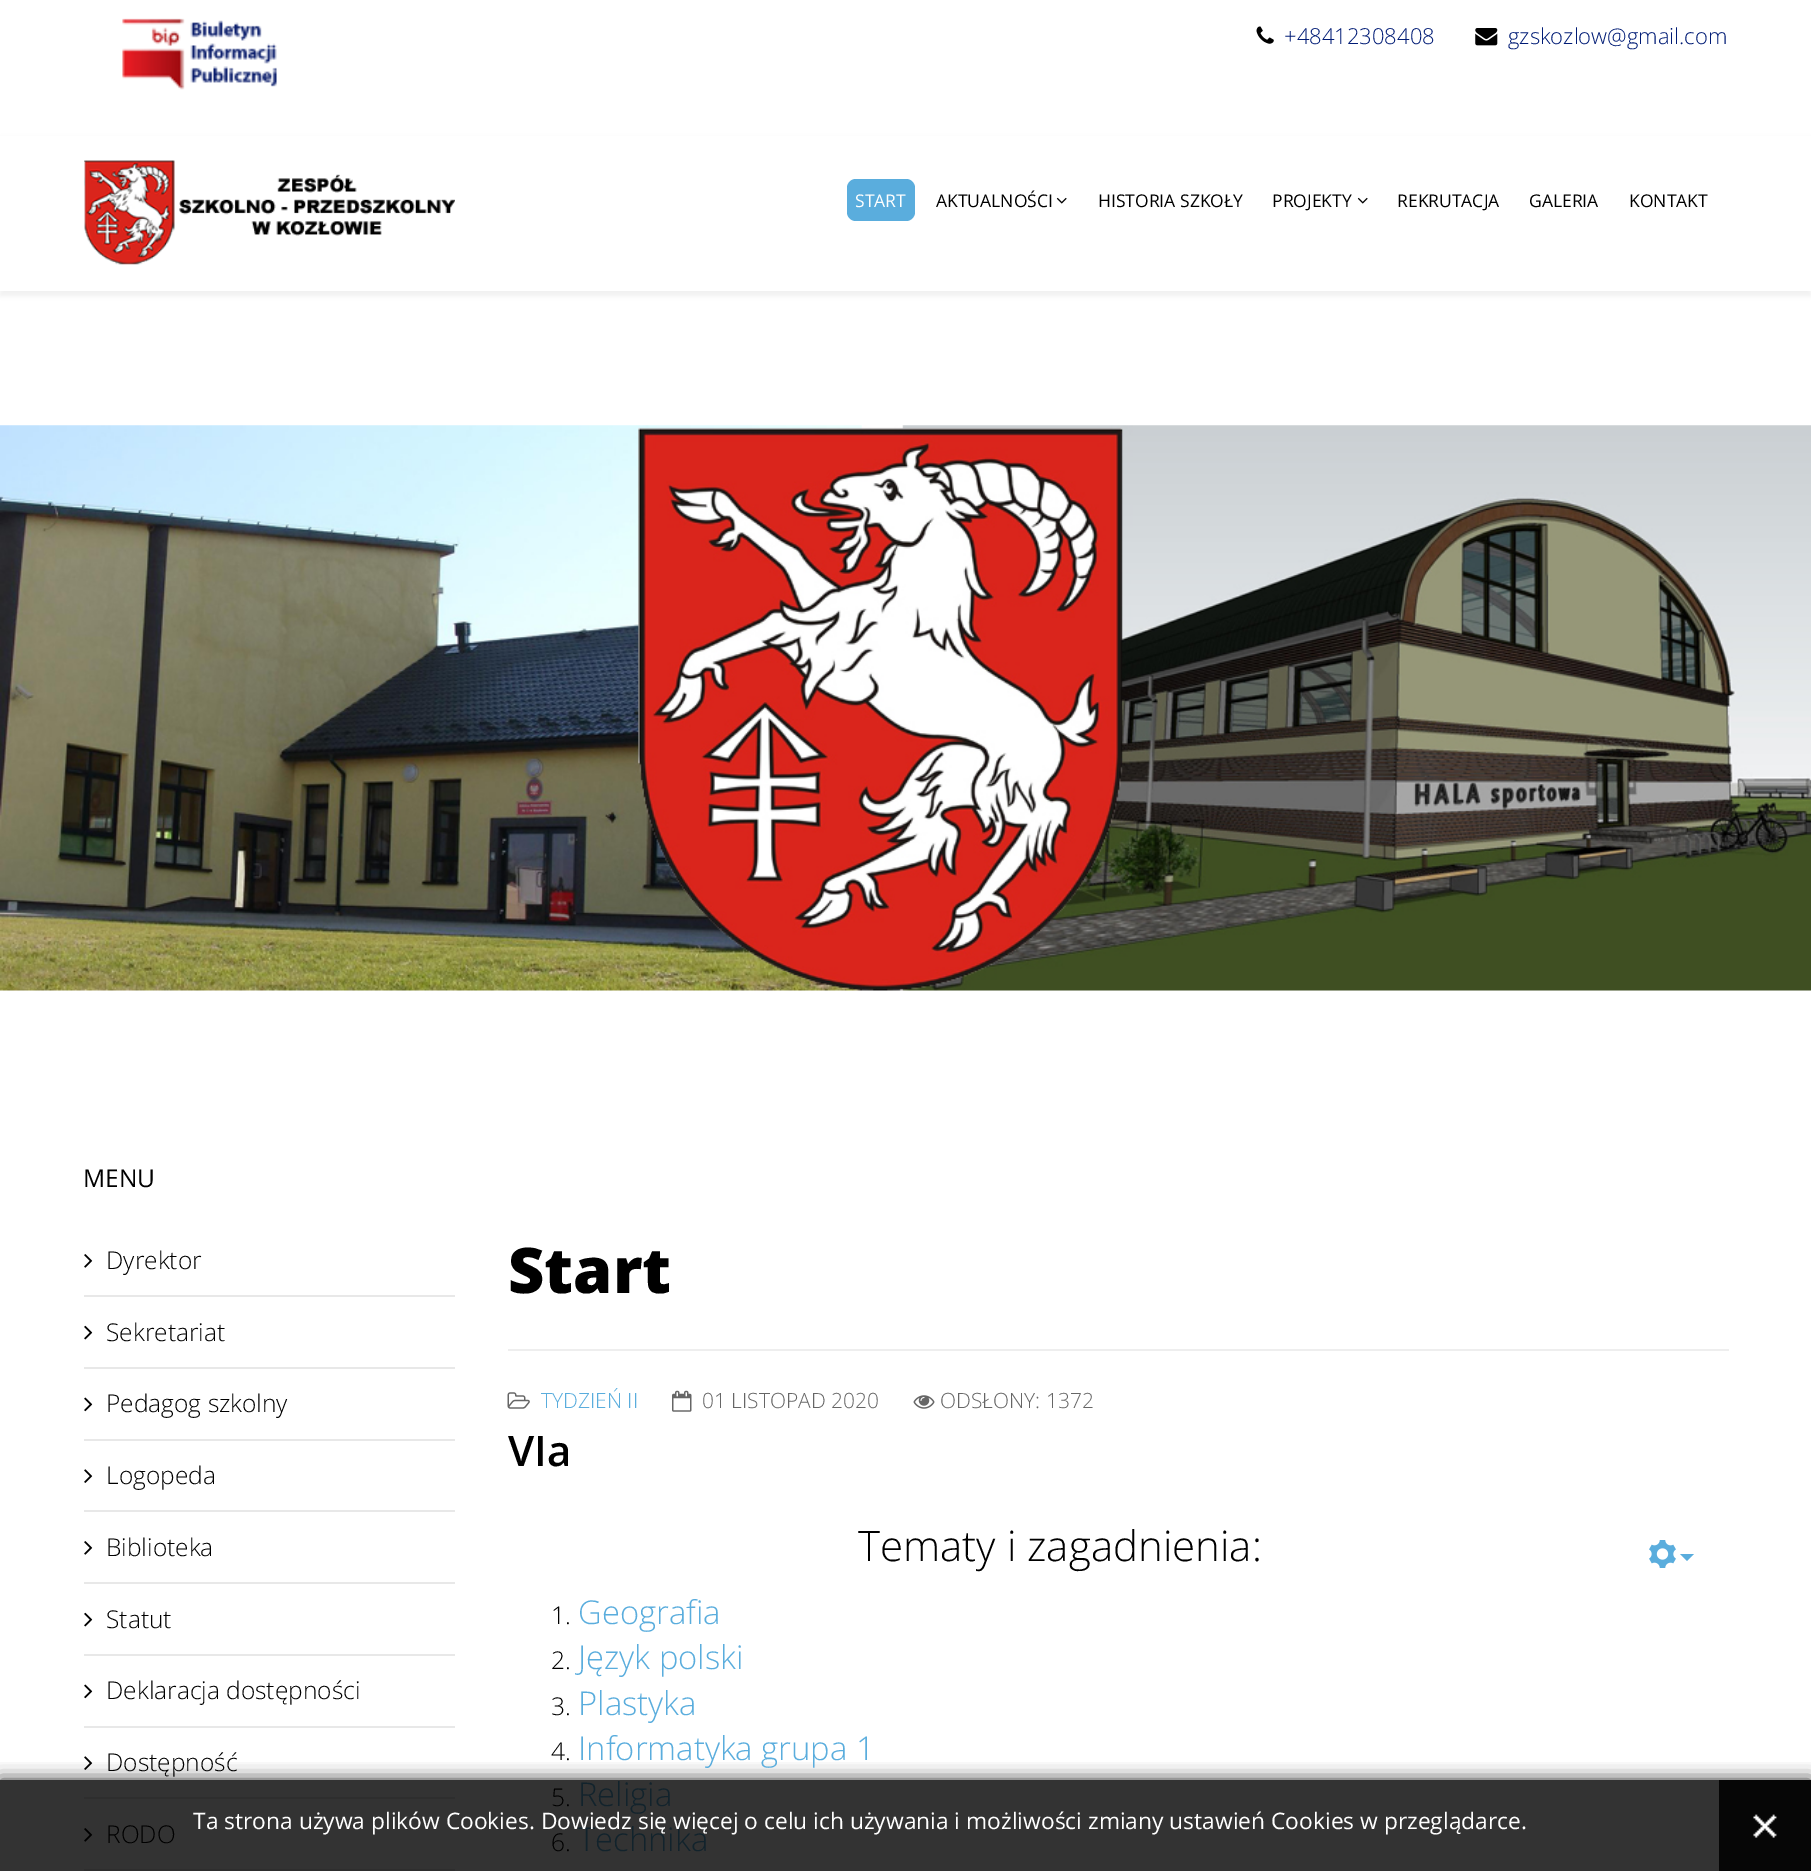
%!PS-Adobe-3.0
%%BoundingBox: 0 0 1811 1871
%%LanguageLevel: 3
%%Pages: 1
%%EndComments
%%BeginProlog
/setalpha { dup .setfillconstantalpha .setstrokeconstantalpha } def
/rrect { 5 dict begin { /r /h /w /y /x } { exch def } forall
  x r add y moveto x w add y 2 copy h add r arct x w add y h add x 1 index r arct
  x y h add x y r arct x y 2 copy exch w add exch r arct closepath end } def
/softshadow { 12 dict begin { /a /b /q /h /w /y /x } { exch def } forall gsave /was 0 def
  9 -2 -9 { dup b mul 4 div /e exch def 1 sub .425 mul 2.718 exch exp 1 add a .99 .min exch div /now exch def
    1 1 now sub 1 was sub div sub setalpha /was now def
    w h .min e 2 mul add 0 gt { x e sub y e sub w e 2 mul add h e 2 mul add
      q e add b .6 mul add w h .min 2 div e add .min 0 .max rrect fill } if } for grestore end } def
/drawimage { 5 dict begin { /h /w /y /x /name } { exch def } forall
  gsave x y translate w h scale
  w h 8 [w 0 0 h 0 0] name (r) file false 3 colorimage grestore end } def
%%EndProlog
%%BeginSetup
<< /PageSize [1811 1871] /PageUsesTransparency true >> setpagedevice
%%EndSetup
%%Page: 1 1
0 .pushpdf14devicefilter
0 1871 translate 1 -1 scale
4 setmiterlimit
1 setgray
0 0 1811 1871 rectfill
0.2 setgray
0 1780 1719 91 rectfill
(images/1.raw) 122 18 155 72 drawimage
(images/2.raw) 1256 26 18 18 drawimage
(images/3.raw) 1475 28 23 18 drawimage
0 setgray
0 138 1811 158 0 2.5 0.05 softshadow
1 setgray
0 136 1811 155 rectfill
(images/4.raw) 84 160 371 105 drawimage
0.353 0.678 0.867 setrgbcolor
847 179 68 42 9 rrect fill
(images/5.raw) 1056 197 11 7 drawimage
(images/5.raw) 1357 197 11 7 drawimage
(images/6.raw) 0 425 1811 566 drawimage
0.91 setgray
84 1295 371 2 rectfill
(images/7.raw) 84 1254 9 14 drawimage
84 1367 371 2 rectfill
(images/8.raw) 84 1325 9 15 drawimage
84 1439 371 2 rectfill
(images/9.raw) 84 1397 9 15 drawimage
84 1510 371 2 rectfill
(images/10.raw) 84 1469 9 14 drawimage
84 1582 371 2 rectfill
(images/7.raw) 84 1541 9 14 drawimage
84 1654 371 2 rectfill
(images/8.raw) 84 1612 9 15 drawimage
84 1726 371 2 rectfill
(images/9.raw) 84 1684 9 15 drawimage
0.18 setgray
84 1797 371 2 rectfill
(images/10.raw) 84 1756 9 14 drawimage
84 1869 371 2 rectfill
(images/11.raw) 84 1828 9 14 drawimage
0.933 setgray
508 1349 1221 2 rectfill
(images/12.raw) 507 1392 23 17 drawimage
(images/13.raw) 672 1390 20 22 drawimage
(images/14.raw) 913 1395 22 14 drawimage
(images/15.raw) 1649 1540 27 28 drawimage
0.353 0.678 0.867 setrgbcolor
newpath 1680 1554 moveto 1694 1554 lineto 1687 1561 lineto closepath fill
gsave
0 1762 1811 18 rectclip
0 setgray
0 1780 1811 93 0 9 0.8 softshadow
grestore
0.024 setgray
1719 1780 92 91 rectfill
(images/16.raw) 1753 1814 24 24 drawimage
/OpenSans-Light [22 0 0 -22 0 0] selectfont
0 0.106 0.459 setrgbcolor
1284 44 moveto (+48412308408) show
1508 44 moveto (gzskozlow@gmail.com) show
/OpenSans-Regular [17.5 0 0 -17.5 0 0] selectfont
1 setgray
855 207 moveto (START) show
0 setgray
936 207 moveto (AKTUALNOŚCI) show
1098 207 moveto (HISTORIA SZKOŁY) show
1272 207 moveto (PROJEKTY) show
1397 207 moveto (REKRUTACJA) show
1529 207 moveto (GALERIA) show
1629 207 moveto (KONTAKT) show
/OpenSans-Regular [24.5 0 0 -24.5 0 0] selectfont
83 1187 moveto (MENU) show
/OpenSans-Light [24.5 0 0 -24.5 0 0] selectfont
106 1269 moveto (Dyrektor) show
106 1341 moveto (Sekretariat) show
106 1412 moveto (Pedagog szkolny) show
106 1484 moveto (Logopeda) show
106 1556 moveto (Biblioteka) show
106 1628 moveto (Statut) show
106 1699 moveto (Deklaracja dostępności) show
106 1771 moveto (Dostępność) show
106 1843 moveto (RODO) show
/OpenSans-ExtraBold [63 0 0 -63 0 0] selectfont
508 1293 moveto (Start) show
/OpenSans-Light [21 0 0 -21 0 0] selectfont
0.353 0.678 0.867 setrgbcolor
541 1408 moveto (TYDZIEŃ II) show
0.4 setgray
702 1408 moveto (01 LISTOPAD 2020) show
940 1408 moveto (ODSŁONY: 1372) show
/OpenSans-SemiBold [42 0 0 -42 0 0] selectfont
0 setgray
508 1466 moveto (VIa) show
/OpenSans-Light [42 0 0 -42 0 0] selectfont
858 1561 moveto (Tematy i zagadnienia:) show
/OpenSans-Light [24.5 0 0 -24.5 0 0] selectfont
551 1624 moveto (1.) show
/OpenSans-Light [32.75 0 0 -32.75 0 0] selectfont
0.353 0.678 0.867 setrgbcolor
578 1624 moveto (Geografia) show
/OpenSans-Light [24.5 0 0 -24.5 0 0] selectfont
0 setgray
551 1669 moveto (2.) show
/OpenSans-Light [32.75 0 0 -32.75 0 0] selectfont
0.353 0.678 0.867 setrgbcolor
578 1669 moveto (Język polski) show
/OpenSans-Light [24.5 0 0 -24.5 0 0] selectfont
0 setgray
551 1715 moveto (3.) show
/OpenSans-Light [32.75 0 0 -32.75 0 0] selectfont
0.353 0.678 0.867 setrgbcolor
578 1715 moveto (Plastyka) show
/OpenSans-Light [24.5 0 0 -24.5 0 0] selectfont
0 setgray
551 1760 moveto (4.) show
/OpenSans-Light [32.75 0 0 -32.75 0 0] selectfont
0.353 0.678 0.867 setrgbcolor
578 1760 moveto (Informatyka grupa 1) show
/OpenSans-Light [24.5 0 0 -24.5 0 0] selectfont
0 setgray
551 1806 moveto (5.) show
/OpenSans-Light [32.75 0 0 -32.75 0 0] selectfont
0.071 0.137 0.173 setrgbcolor
578 1806 moveto (Religia) show
/OpenSans-Light [24.5 0 0 -24.5 0 0] selectfont
0 setgray
551 1851 moveto (6.) show
/OpenSans-Light [32.75 0 0 -32.75 0 0] selectfont
0.071 0.137 0.173 setrgbcolor
578 1851 moveto (Technika) show
/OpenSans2-Regular [22.75 0 0 -22.75 0 0] selectfont
1 setgray
193 1829 moveto (Ta strona używa plików Cookies. Dowiedz się więcej o celu ich używania i możliwości zmiany ustawień Cookies w przeglądarce.) show
.poppdf14devicefilter showpage
%%EOF
